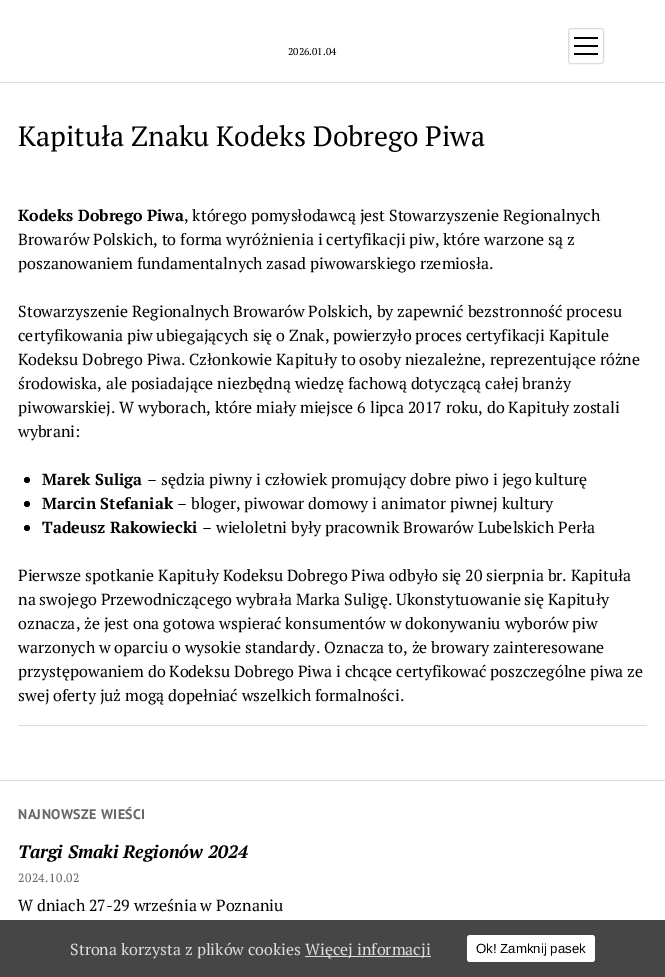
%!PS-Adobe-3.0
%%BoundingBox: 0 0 665 977
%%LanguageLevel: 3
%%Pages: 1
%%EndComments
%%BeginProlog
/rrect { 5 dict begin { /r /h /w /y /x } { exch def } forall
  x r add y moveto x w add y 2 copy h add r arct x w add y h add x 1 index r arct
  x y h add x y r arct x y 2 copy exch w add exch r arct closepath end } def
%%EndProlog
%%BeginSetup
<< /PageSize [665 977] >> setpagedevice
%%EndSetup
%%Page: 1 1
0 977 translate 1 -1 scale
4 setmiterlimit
1 setgray
0 0 665 977 rectfill
0.863 setgray
0 82 665 1 rectfill
568.5 28.5 35 35 2.5 rrect stroke
0 setgray
574 37 24 2 rectfill
574 45 24 2 rectfill
574 53 24 2 rectfill
0.863 setgray
18 725 629 1 rectfill
0 setgray
newpath 27 480 3 0 360 arc closepath fill
newpath 27 504 3 0 360 arc closepath fill
newpath 27 528 3 0 360 arc closepath fill
0.863 setgray
0 780 665 1 rectfill
0.275 setgray
0 920 665 57 rectfill
0.867 setgray
305 956 126 1 rectfill
1 setgray
467 935 128 27 3 rrect fill
/PTSerif-Regular [10 0 0 -10 0 0] selectfont
0 setgray
288 55 moveto (2026.01.04) show
/PTSerif-Regular [28 0 0 -28 0 0] selectfont
18 146 moveto (Kapituła Znaku Kodeks Dobrego Piwa) show
/PTSerif-Bold [16 0 0 -16 0 0] selectfont
18 221 moveto (Kodeks Dobrego Piwa) show
/PTSerif-Regular [16 0 0 -16 0 0] selectfont
184 221 moveto (, którego pomysłodawcą jest Stowarzyszenie Regionalnych) show
18 245 moveto (Browarów Polskich, to forma wyróżnienia i certyfikacji piw, które warzone są z) show
18 269 moveto (poszanowaniem fundamentalnych zasad piwowarskiego rzemiosła.) show
18 317 moveto (Stowarzyszenie Regionalnych Browarów Polskich, by zapewnić bezstronność procesu) show
18 341 moveto (certyfikowania piw ubiegających się o Znak, powierzyło proces certyfikacji Kapitule) show
18 365 moveto (Kodeksu Dobrego Piwa. Członkowie Kapituły to osoby niezależne, reprezentujące różne) show
18 389 moveto (środowiska, ale posiadające niezbędną wiedzę fachową dotyczącą całej branży) show
18 413 moveto (piwowarskiej. W wyborach, które miały miejsce 6 lipca 2017 roku, do Kapituły zostali) show
18 437 moveto (wybrani:) show
/PTSerif-Bold [16 0 0 -16 0 0] selectfont
42 485 moveto (Marek Suliga) show
/PTSerif-Regular [16 0 0 -16 0 0] selectfont
147 485 moveto (– sędzia piwny i człowiek promujący dobre piwo i jego kulturę) show
/PTSerif-Bold [16 0 0 -16 0 0] selectfont
42 509 moveto (Marcin Stefaniak) show
/PTSerif-Regular [16 0 0 -16 0 0] selectfont
177 509 moveto (– bloger, piwowar domowy i animator piwnej kultury) show
/PTSerif-Bold [16 0 0 -16 0 0] selectfont
42 533 moveto (Tadeusz Rakowiecki) show
/PTSerif-Regular [16 0 0 -16 0 0] selectfont
202 533 moveto (– wieloletni były pracownik Browarów Lubelskich Perła) show
18 581 moveto (Pierwsze spotkanie Kapituły Kodeksu Dobrego Piwa odbyło się 20 sierpnia br. Kapituła) show
18 605 moveto (na swojego Przewodniczącego wybrała Marka Suligę. Ukonstytuowanie się Kapituły) show
18 629 moveto (oznacza, że jest ona gotowa wspierać konsumentów w dokonywaniu wyborów piw) show
18 653 moveto (warzonych w oparciu o wysokie standardy. Oznacza to, że browary zainteresowane) show
18 677 moveto (przystępowaniem do Kodeksu Dobrego Piwa i chcące certyfikować poszczególne piwa ze) show
18 701 moveto (swej oferty już mogą dopełniać wszelkich formalności.) show
/PTSans-Bold [14 0 0 -14 0 0] selectfont
0.4 setgray
18 819 moveto 0.4 0 (NAJNOWSZE WIEŚCI) ashow
/PTSerif-BoldItalic [18 0 0 -18 0 0] selectfont
0 setgray
18 858 moveto (Targi Smaki Regionów 2024) show
/PTSerif-Regular [12 0 0 -12 0 0] selectfont
0.4 setgray
18 882 moveto 0.4 0 (2024.10.02) ashow
/PTSerif-Regular [16 0 0 -16 0 0] selectfont
0 setgray
18 911 moveto (W dniach 27-29 września w Poznaniu) show
0.867 setgray
70 955 moveto (Strona korzysta z plików cookies) show
305 955 moveto (Więcej informacji) show
/LiberationSans-Regular [13.25 0 0 -13.25 0 0] selectfont
0 setgray
476 953 moveto (Ok! Zamknij pasek) show
showpage
%%EOF
